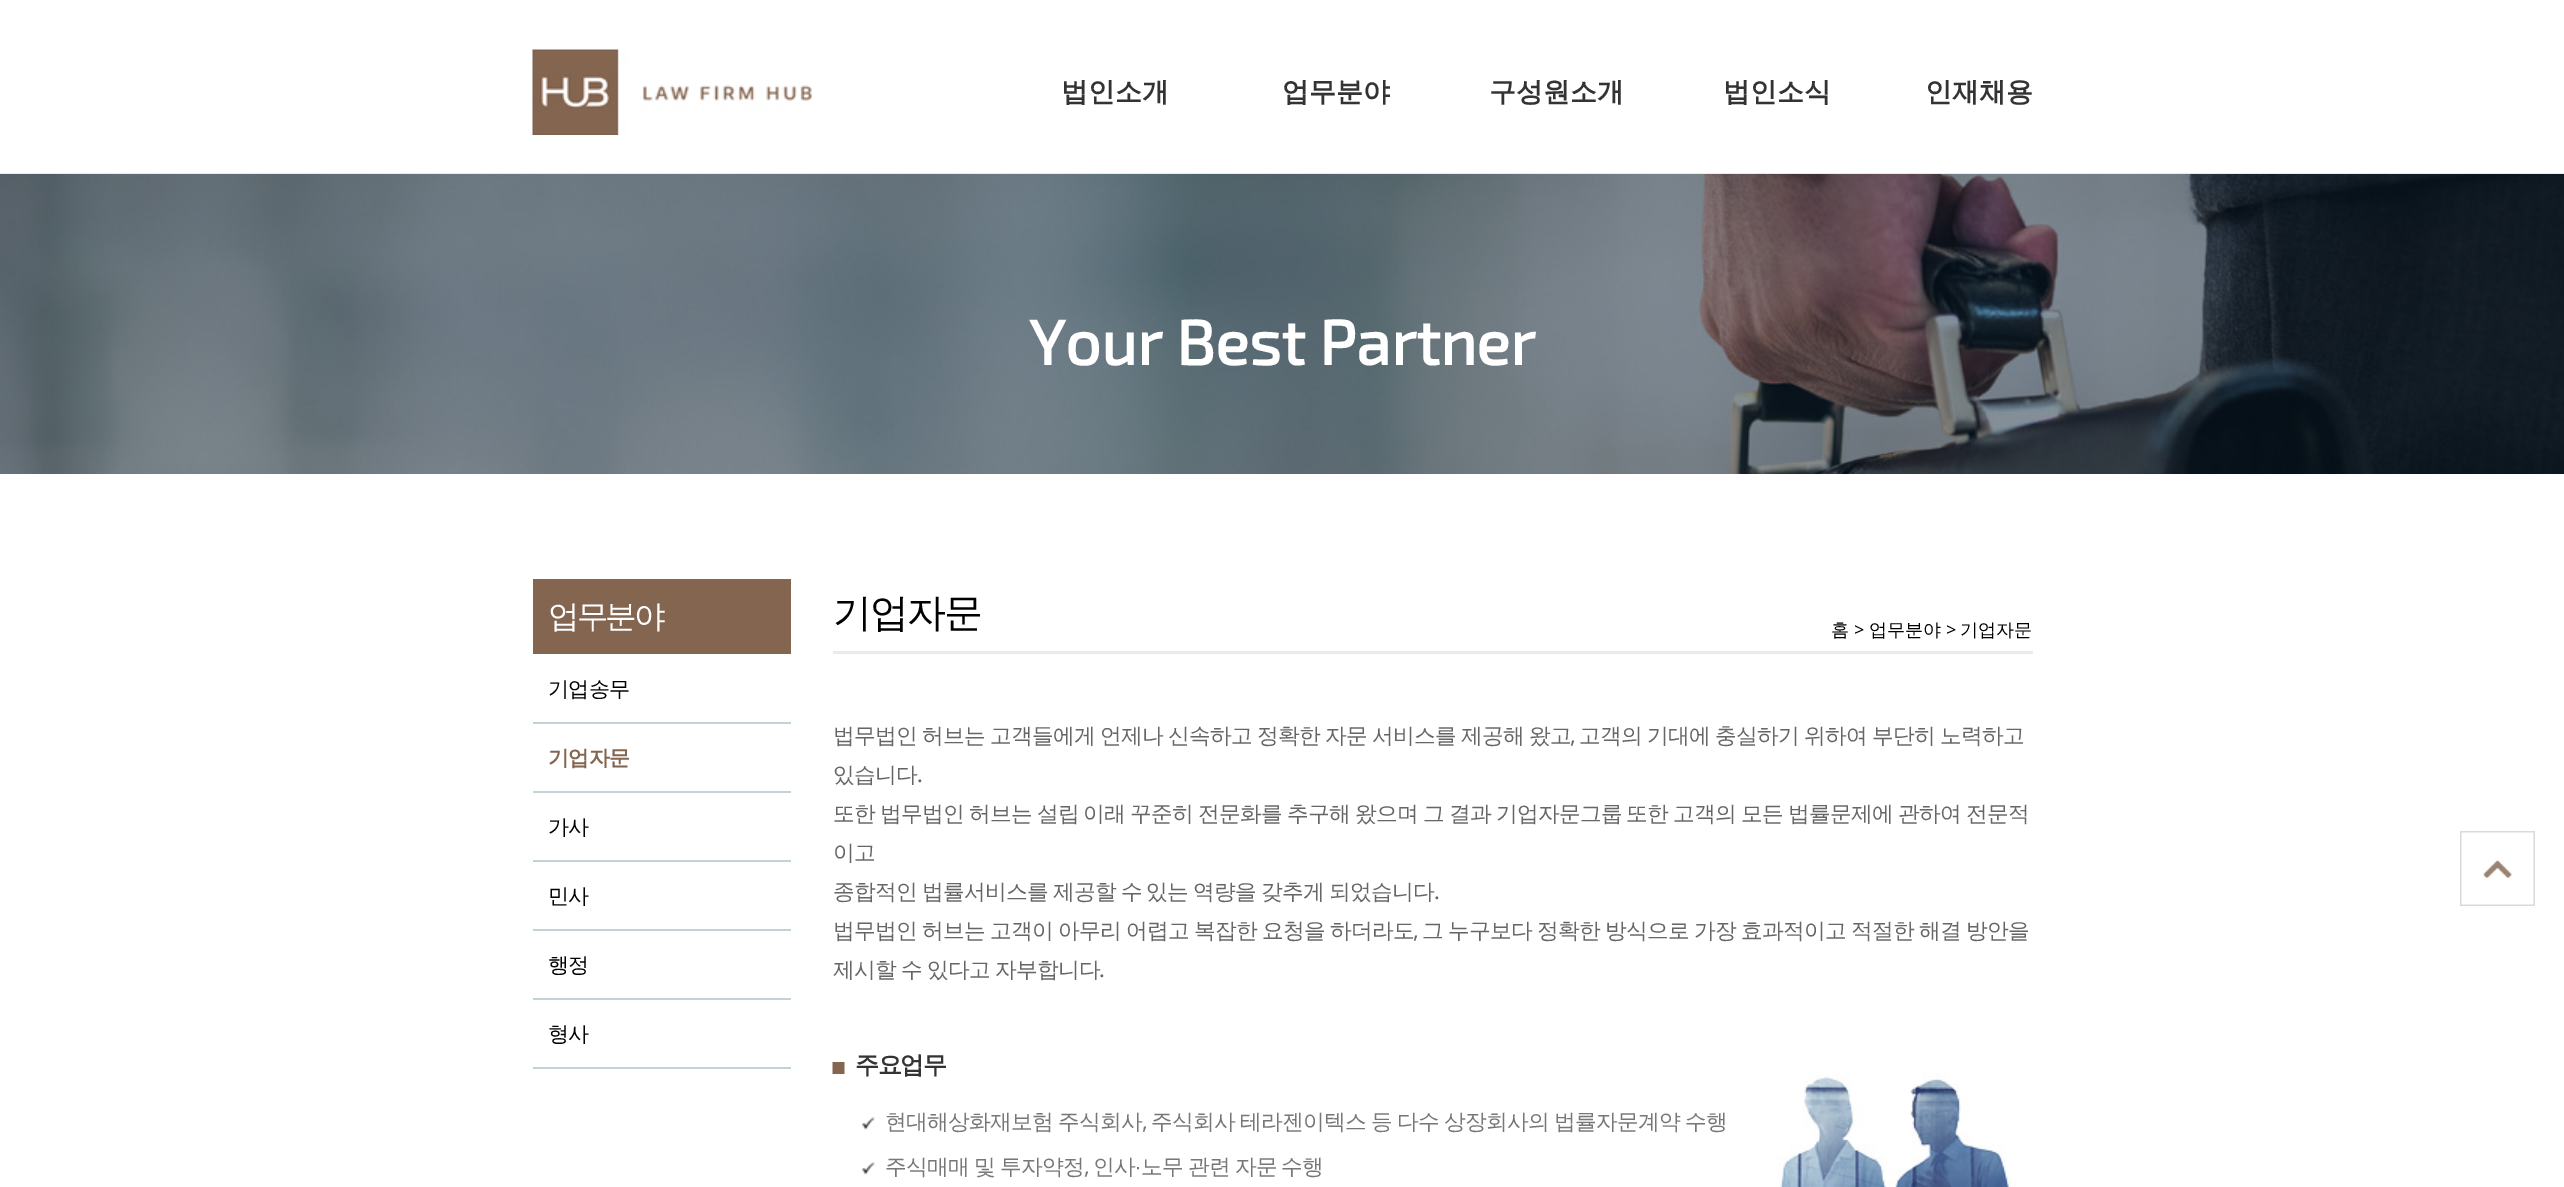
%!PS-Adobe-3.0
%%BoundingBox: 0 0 2564 1187
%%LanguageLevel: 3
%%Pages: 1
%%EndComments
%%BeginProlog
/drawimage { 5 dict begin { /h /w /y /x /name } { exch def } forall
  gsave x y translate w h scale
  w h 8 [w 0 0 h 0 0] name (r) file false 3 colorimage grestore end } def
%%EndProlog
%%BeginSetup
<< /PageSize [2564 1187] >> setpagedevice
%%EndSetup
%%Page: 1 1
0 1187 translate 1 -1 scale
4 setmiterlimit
1 setgray
0 0 2564 1187 rectfill
(images/1.raw) 532 49 280 86 drawimage
0.918 setgray
0 173 2564 1 rectfill
(images/2.raw) 0 174 2564 300 drawimage
0.518 0.396 0.314 setrgbcolor
533 579 258 75 rectfill
0.765 0.824 0.839 setrgbcolor
533 722 258 2 rectfill
533 791 258 2 rectfill
533 860 258 2 rectfill
533 929 258 2 rectfill
533 998 258 2 rectfill
533 1067 258 2 rectfill
(images/3.raw) 1779 1073 237 114 drawimage
0.918 setgray
833 651 1200 3 rectfill
(images/4.raw) 832 1062 13 12 drawimage
(images/5.raw) 862 1117 13 13 drawimage
(images/5.raw) 862 1162 13 13 drawimage
(images/6.raw) 2460 831 75 75 drawimage
/WenQuanYiZenHei-Bold [27 0 0 -27 0 0] selectfont
0.2 setgray
1061 101 moveto (법인소개) show
1282 101 moveto (업무분야) show
1489 101 moveto (구성원소개) show
1723 101 moveto (법인소식) show
1925 101 moveto (인재채용) show
/Exo2-Bold [63 0 0 -63 0 0] selectfont
1 setgray
1029 365 moveto (Your Best Partner) show
/WenQuanYiZenHei-Medium [31.5 0 0 -31.5 0 0] selectfont
548 627 moveto -3 0 (업무분야) ashow
/WenQuanYiZenHei-Medium [21 0 0 -21 0 0] selectfont
0 setgray
548 696 moveto -0.75 0 (기업송무) ashow
/WenQuanYiZenHei-Bold [21 0 0 -21 0 0] selectfont
0.518 0.396 0.314 setrgbcolor
548 765 moveto -0.75 0 (기업자문) ashow
/WenQuanYiZenHei-Medium [21 0 0 -21 0 0] selectfont
0 setgray
548 834 moveto -0.75 0 (가사) ashow
548 903 moveto -0.75 0 (민사) ashow
548 972 moveto -0.75 0 (행정) ashow
548 1041 moveto -0.75 0 (형사) ashow
/WenQuanYiZenHei-Medium [39 0 0 -39 0 0] selectfont
833 626 moveto -2 0 (기업자문) ashow
/WenQuanYiZenHei-Medium [18 0 0 -18 0 0] selectfont
1831 636 moveto (홈) show
/NotoSans-Regular [18 0 0 -18 0 0] selectfont
1854 636 moveto (>) show
/WenQuanYiZenHei-Medium [18 0 0 -18 0 0] selectfont
1869 636 moveto (업무분야) show
/NotoSans-Regular [18 0 0 -18 0 0] selectfont
1946 636 moveto (>) show
/WenQuanYiZenHei-Medium [18 0 0 -18 0 0] selectfont
1960 636 moveto (기업자문) show
/WenQuanYiZenHei-Medium [21.75 0 0 -21.75 0 0] selectfont
0.4 setgray
833 743 moveto -0.75 0 32 -0.75 0 (법무법인 허브는 고객들에게 언제나 신속하고 정확한 자문 서비스를 제공해 왔고) awidthshow
/NotoSans-Regular [21.75 0 0 -21.75 0 0] selectfont
1570 743 moveto -0.75 0 (,) ashow
/WenQuanYiZenHei-Medium [21.75 0 0 -21.75 0 0] selectfont
1579 743 moveto -0.75 0 32 -0.75 0 (고객의 기대에 충실하기 위하여 부단히 노력하고) awidthshow
833 782 moveto -0.75 0 (있습니다) ashow
/NotoSans-Regular [21.75 0 0 -21.75 0 0] selectfont
917 782 moveto -0.75 0 (.) ashow
/WenQuanYiZenHei-Medium [21.75 0 0 -21.75 0 0] selectfont
833 821 moveto -0.9 0 32 -0.75 0 (또한 법무법인 허브는 설립 이래 꾸준히 전문화를 추구해 왔으며 그 결과 기업자문그룹 또한 고객의 모든 법률문제에 관하여 전문적) awidthshow
833 860 moveto -0.75 0 (이고) ashow
833 899 moveto -0.9 0 32 -0.75 0 (종합적인 법률서비스를 제공할 수 있는 역량을 갖추게 되었습니다) awidthshow
/NotoSans-Regular [21.75 0 0 -21.75 0 0] selectfont
1434 899 moveto -0.75 0 (.) ashow
/WenQuanYiZenHei-Medium [21.75 0 0 -21.75 0 0] selectfont
833 938 moveto -0.75 0 32 -0.75 0 (법무법인 허브는 고객이 아무리 어렵고 복잡한 요청을 하더라도) awidthshow
/NotoSans-Regular [21.75 0 0 -21.75 0 0] selectfont
1413 938 moveto -0.75 0 (,) ashow
/WenQuanYiZenHei-Medium [21.75 0 0 -21.75 0 0] selectfont
1422 938 moveto -0.75 0 32 -0.75 0 (그 누구보다 정확한 방식으로 가장 효과적이고 적절한 해결 방안을) awidthshow
833 977 moveto -0.9 0 32 -0.75 0 (제시할 수 있다고 자부합니다) awidthshow
/NotoSans-Regular [21.75 0 0 -21.75 0 0] selectfont
1099 977 moveto -0.75 0 (.) ashow
/WenQuanYiZenHei-Bold [24 0 0 -24 0 0] selectfont
0.2 setgray
855 1073 moveto -1.5 0 (주요업무) ashow
/WenQuanYiZenHei-Medium [21.75 0 0 -21.75 0 0] selectfont
0.467 setgray
885 1129 moveto -0.75 0 32 -0.75 0 (현대해상화재보험 주식회사) awidthshow
/NotoSans-Regular [21.75 0 0 -21.75 0 0] selectfont
1142 1129 moveto -0.75 0 (,) ashow
/WenQuanYiZenHei-Medium [21.75 0 0 -21.75 0 0] selectfont
1151 1129 moveto -0.75 0 32 -0.75 0 (주식회사 테라젠이텍스 등 다수 상장회사의 법률자문계약 수행) awidthshow
885 1174 moveto -1 0 32 -0.75 0 (주식매매 및 투자약정) awidthshow
1093 1174 moveto -0.75 0 (인사) ashow
/LiberationSans-Regular [21.75 0 0 -21.75 0 0] selectfont
1135 1174 moveto -0.75 0 (∙) ashow
/WenQuanYiZenHei-Medium [21.75 0 0 -21.75 0 0] selectfont
1141 1174 moveto -1 0 32 -0.75 0 (노무 관련 자문 수행) awidthshow
/NotoSans-Regular [21.75 0 0 -21.75 0 0] selectfont
1084 1174 moveto -0.75 0 (,) ashow
showpage
%%EOF
